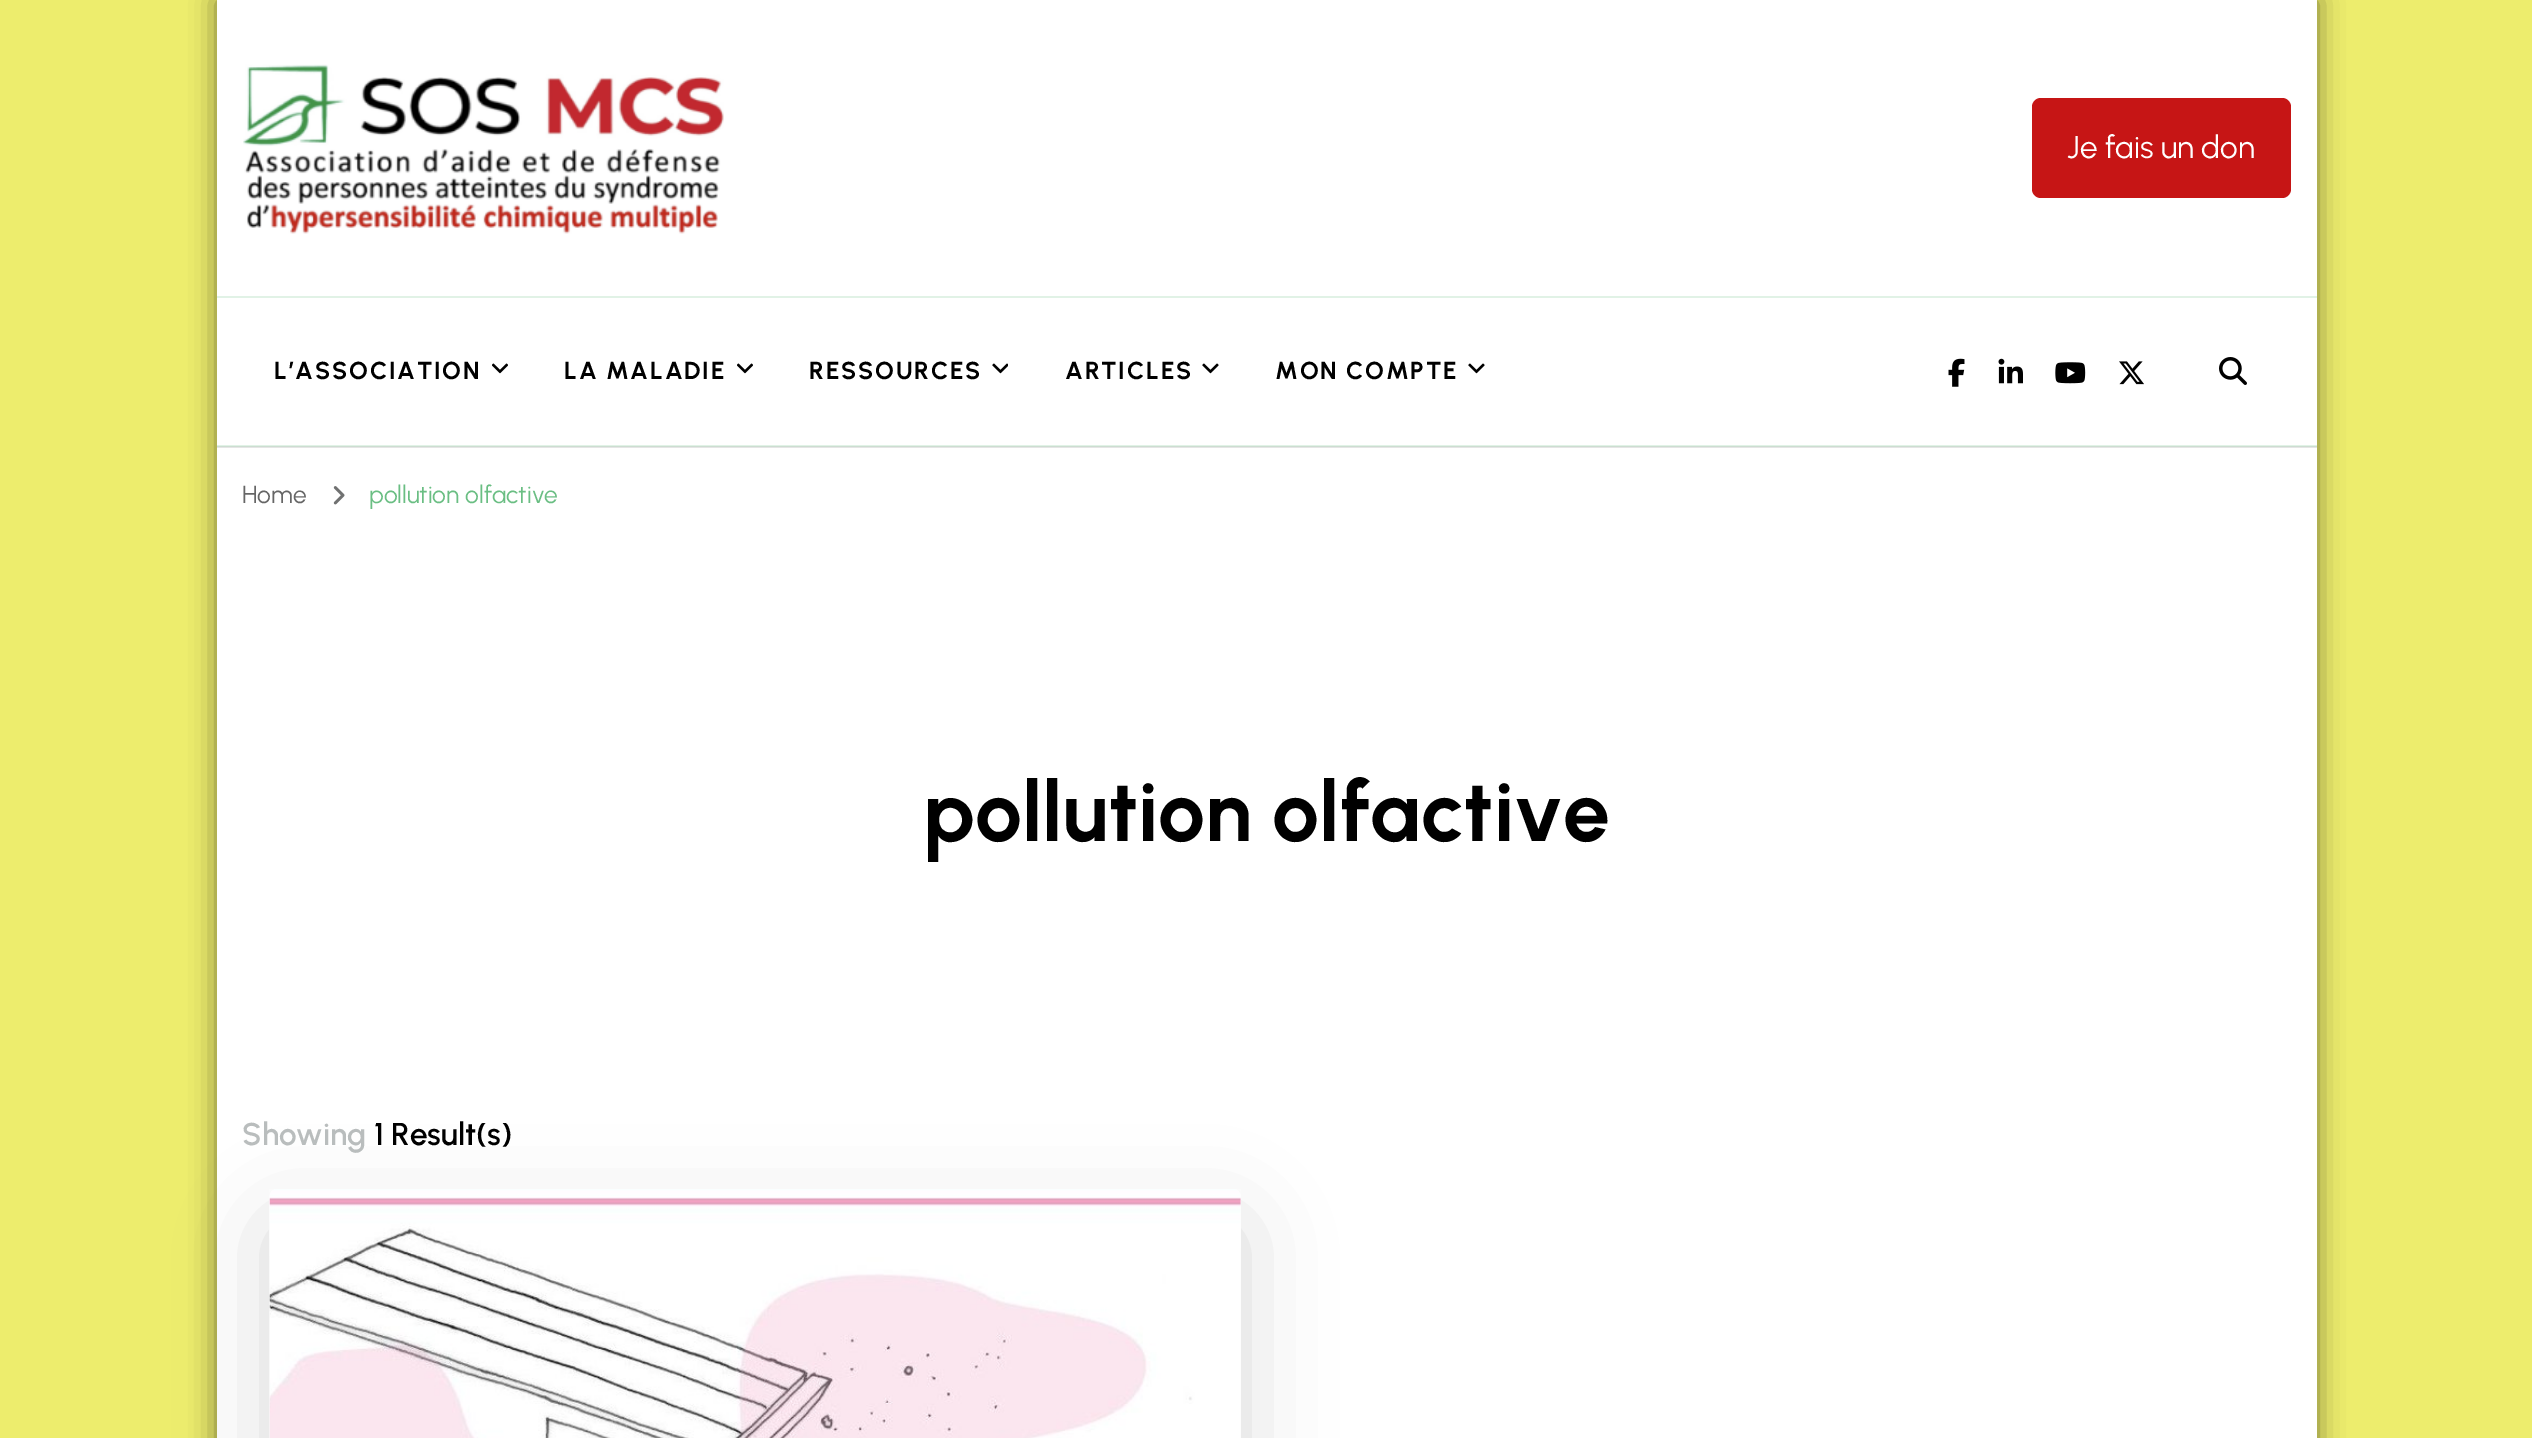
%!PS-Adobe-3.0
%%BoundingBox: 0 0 2532 1438
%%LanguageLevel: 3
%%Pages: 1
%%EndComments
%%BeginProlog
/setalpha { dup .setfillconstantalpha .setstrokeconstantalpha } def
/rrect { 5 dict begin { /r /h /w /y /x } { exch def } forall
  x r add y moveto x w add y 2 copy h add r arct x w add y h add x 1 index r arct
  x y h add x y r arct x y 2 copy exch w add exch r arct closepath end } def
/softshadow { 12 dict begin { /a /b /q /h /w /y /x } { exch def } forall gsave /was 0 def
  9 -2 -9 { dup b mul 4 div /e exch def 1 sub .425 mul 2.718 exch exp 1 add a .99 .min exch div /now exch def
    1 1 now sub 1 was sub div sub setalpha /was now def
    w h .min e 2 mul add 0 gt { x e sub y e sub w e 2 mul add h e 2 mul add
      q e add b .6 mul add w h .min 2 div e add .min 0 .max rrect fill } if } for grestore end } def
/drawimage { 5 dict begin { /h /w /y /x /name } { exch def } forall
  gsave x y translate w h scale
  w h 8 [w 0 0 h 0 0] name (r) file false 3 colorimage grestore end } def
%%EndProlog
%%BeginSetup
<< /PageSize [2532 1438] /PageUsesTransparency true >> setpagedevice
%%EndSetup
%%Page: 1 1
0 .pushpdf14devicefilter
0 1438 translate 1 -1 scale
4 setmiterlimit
0.929 0.929 0.427 setrgbcolor
0 0 2532 1438 rectfill
0 setgray
217 0 2100 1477 0 13 0.5 softshadow
1 setgray
217 0 2100 1438 rectfill
0.882 0.949 0.902 setrgbcolor
217 445 2100 1 rectfill
0.898 setgray
217 447 2100 1 rectfill
0.8 0.867 0.82 setrgbcolor
217 446 2100 1 rectfill
0.882 0.949 0.902 setrgbcolor
217 296 2100 2 rectfill
(images/1.raw) 243 64 481 170 drawimage
0.776 0.082 0.082 setrgbcolor
2032 98 259 100 9 rrect fill
(images/2.raw) 492 363 16 11 drawimage
(images/2.raw) 737 363 16 11 drawimage
(images/3.raw) 992 363 16 11 drawimage
(images/4.raw) 1202 363 17 11 drawimage
(images/4.raw) 1468 363 17 11 drawimage
(images/5.raw) 1948 358 17 29 drawimage
(images/6.raw) 1998 358 25 26 drawimage
(images/7.raw) 2055 362 31 22 drawimage
(images/8.raw) 2119 361 25 24 drawimage
(images/9.raw) 2219 357 28 28 drawimage
(images/10.raw) 333 486 12 19 drawimage
0 setgray
270 1223 971 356 9 44 0.15 softshadow
(images/11.raw) 269 1189 972 249 drawimage
/Urbanist-Regular [31.5 0 0 -31.5 0 0] selectfont
1 setgray
2067 158 moveto (Je fais un don) show
/Urbanist-Bold [24.5 0 0 -24.5 0 0] selectfont
0 setgray
274 379 moveto 1.75 0 (L’ASSOCIATION) ashow
564 379 moveto 1.75 0 (LA MALADIE) ashow
809 379 moveto 1.75 0 (RESSOURCES) ashow
1065 379 moveto 1.75 0 (ARTICLES) ashow
1275 379 moveto 1.75 0 (MON COMPTE) ashow
/Urbanist-Regular [24.5 0 0 -24.5 0 0] selectfont
0.4 setgray
242 503 moveto (Home) show
0.416 0.745 0.514 setrgbcolor
369 503 moveto (pollution olfactive) show
/Urbanist-Bold [84 0 0 -84 0 0] selectfont
0 setgray
923 841 moveto (pollution olfactive) show
/Urbanist-SemiBold [31.5 0 0 -31.5 0 0] selectfont
0.725 0.741 0.741 setrgbcolor
242 1145 moveto (Showing) show
0 setgray
374 1145 moveto (1 Result\(s\)) show
.poppdf14devicefilter showpage
%%EOF
